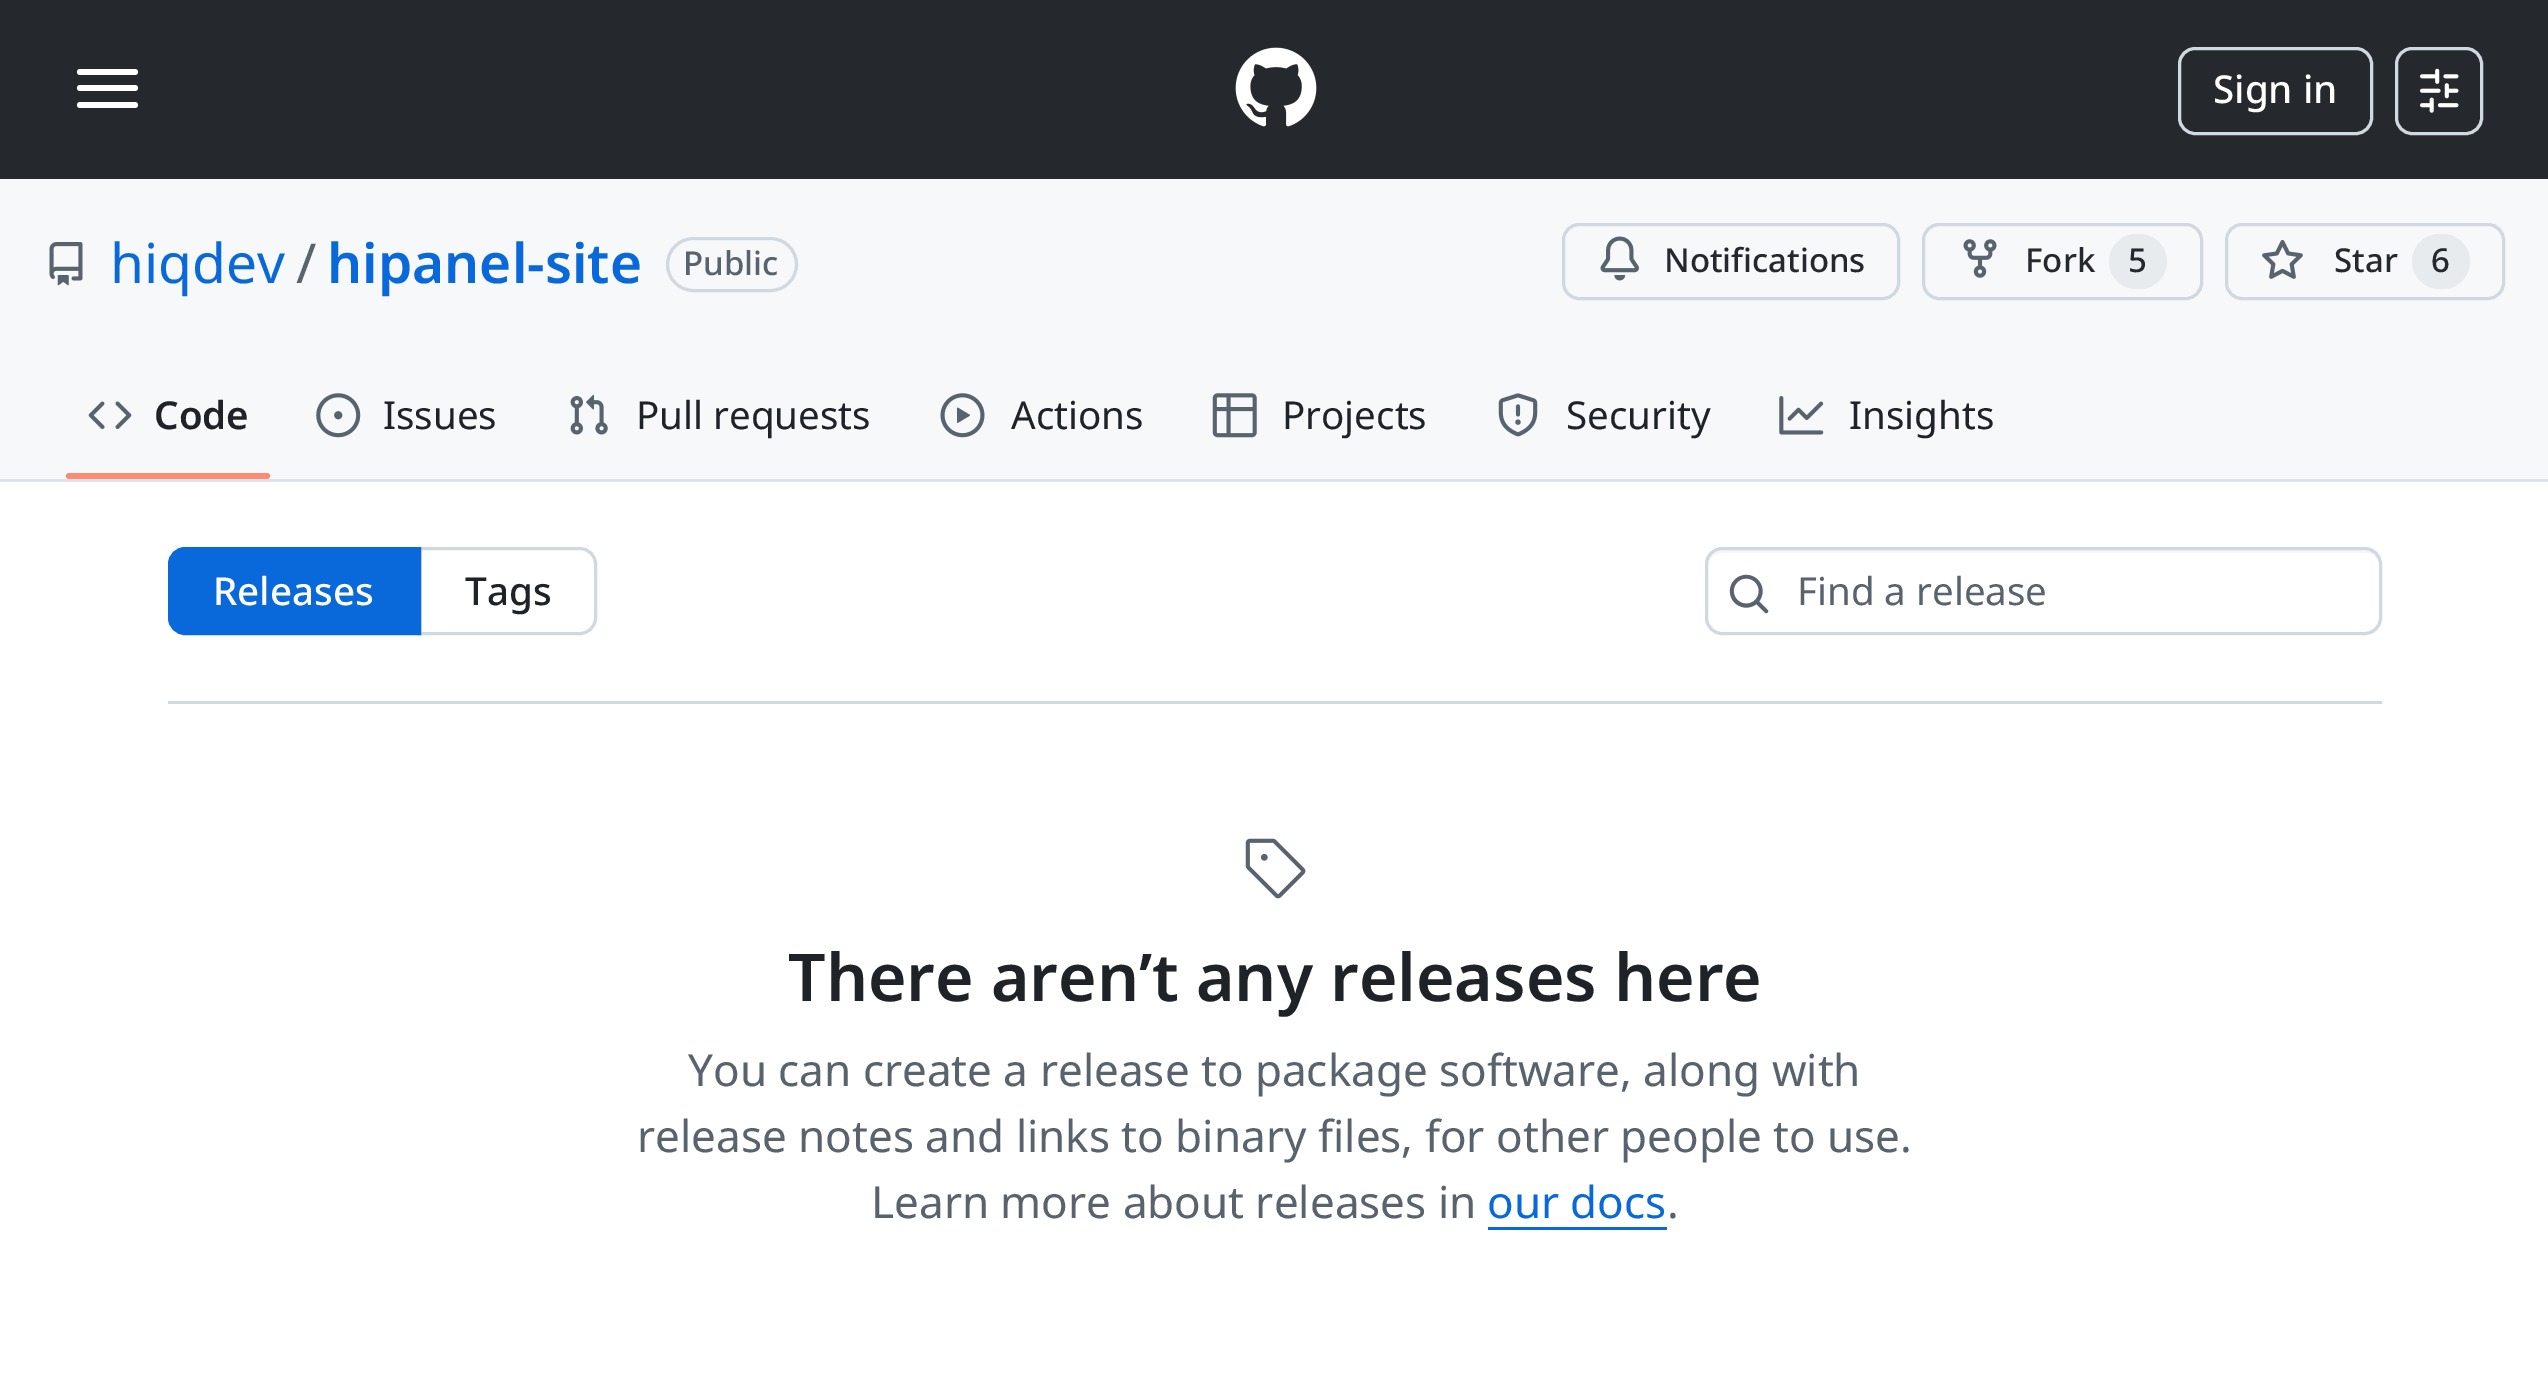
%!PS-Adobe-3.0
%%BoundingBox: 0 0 2548 1386
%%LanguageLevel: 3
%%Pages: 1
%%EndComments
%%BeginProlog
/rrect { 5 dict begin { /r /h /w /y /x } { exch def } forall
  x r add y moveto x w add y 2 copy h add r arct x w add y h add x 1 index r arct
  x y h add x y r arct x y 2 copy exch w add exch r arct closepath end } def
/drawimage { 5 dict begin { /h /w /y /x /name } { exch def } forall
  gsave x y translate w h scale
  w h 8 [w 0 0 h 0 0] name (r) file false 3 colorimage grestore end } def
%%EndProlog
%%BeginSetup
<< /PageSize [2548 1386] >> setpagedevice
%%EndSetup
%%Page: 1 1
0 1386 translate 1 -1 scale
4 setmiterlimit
1 setgray
0 0 2548 1386 rectfill
0.875 0.894 0.914 setrgbcolor
0 481 2548 1 rectfill
0.145 0.161 0.18 setrgbcolor
0 0 2548 179 rectfill
1 setgray
77 69 61 6 3 rrect fill
77 85 61 6 3 rrect fill
77 102 61 6 3 rrect fill
(images/1.raw) 1235 47 82 80 drawimage
0.82 0.851 0.878 setrgbcolor
3 setlinewidth
2179.5 48.5 192 85 15.5 rrect stroke
2396.5 48.5 85 85 15.5 rrect stroke
(images/2.raw) 2420 68 39 45 drawimage
0.965 0.973 0.98 setrgbcolor
0 179 2548 300 rectfill
0.863 0.886 0.91 setrgbcolor
0 479 2548 2 rectfill
(images/3.raw) 49 242 34 44 drawimage
0.82 0.851 0.878 setrgbcolor
667.5 238.5 129 52 26 rrect stroke
1563.5 224.5 335 74 15.5 rrect stroke
(images/4.raw) 1600 236 39 45 drawimage
1923.5 224.5 278 74 15.5 rrect stroke
(images/5.raw) 1963 239 34 39 drawimage
0.91 0.922 0.933 setrgbcolor
2109 234 58 55 27.5 rrect fill
0.82 0.851 0.878 setrgbcolor
2226.5 224.5 277 74 15.5 rrect stroke
(images/6.raw) 2262 239 41 40 drawimage
0.91 0.922 0.933 setrgbcolor
2412 234 58 55 27.5 rrect fill
(images/7.raw) 88 401 44 28 drawimage
0.992 0.549 0.451 setrgbcolor
66 473 204 6 3 rrect fill
(images/8.raw) 316 393 45 45 drawimage
(images/9.raw) 570 394 38 41 drawimage
(images/10.raw) 940 393 45 45 drawimage
(images/11.raw) 1212 393 45 45 drawimage
(images/12.raw) 1498 393 40 44 drawimage
(images/13.raw) 1779 396 45 39 drawimage
0.82 0.851 0.878 setrgbcolor
168 701 2214 3 rectfill
newpath 419.5 548.5 moveto 580 548.5 lineto 588.5 548.5 595.5 555.5 595.5 564 curveto 595.5 618 lineto 595.5 626.5 588.5 633.5 580 633.5 curveto 419.5 633.5 lineto closepath stroke
0.035 0.412 0.855 setrgbcolor
newpath 185 548.5 moveto 419.5 548.5 lineto 419.5 633.5 lineto 185 633.5 lineto 176.5 633.5 169.5 626.5 169.5 618 curveto 169.5 564 lineto 169.5 555.5 176.5 548.5 185 548.5 curveto closepath gsave fill grestore
stroke
0.965 setgray
newpath 1722 553 moveto 2365 553 lineto 2373 553 2379 559 2379 566 curveto 2379 558 2374 550 2365 550 curveto 1722 550 lineto 1713 550 1708 558 1708 566 curveto 1708 559 1714 553 1722 553 curveto closepath fill
0.82 0.851 0.878 setrgbcolor
1706.5 548.5 674 85 15.5 rrect stroke
(images/14.raw) 1729 574 40 40 drawimage
(images/15.raw) 1245 838 61 61 drawimage
0.035 0.412 0.855 setrgbcolor
1488 1227 179 3 rectfill
/NotoSans-Medium [38.5 0 0 -38.5 0 0] selectfont
1 setgray
2213 103 moveto (Sign in) show
/NotoSans-Regular [55 0 0 -55 0 0] selectfont
0.035 0.412 0.855 setrgbcolor
110 283 moveto (hiqdev) show
0.349 0.388 0.431 setrgbcolor
296 283 moveto (/) show
/NotoSans-SemiBold [55 0 0 -55 0 0] selectfont
0.035 0.412 0.855 setrgbcolor
327 283 moveto (hipanel-site) show
/NotoSans-Medium [33 0 0 -33 0 0] selectfont
0.349 0.388 0.431 setrgbcolor
683 275 moveto (Public) show
0.145 0.161 0.18 setrgbcolor
1664 272 moveto (Notifications) show
2025 272 moveto (Fork) show
2128 272 moveto (5) show
2334 272 moveto (Star) show
2431 272 moveto (6) show
/NotoSans-SemiBold [38.5 0 0 -38.5 0 0] selectfont
0.122 0.137 0.157 setrgbcolor
154 429 moveto (Code) show
/NotoSans-Regular [38.5 0 0 -38.5 0 0] selectfont
383 429 moveto (Issues) show
636 429 moveto (Pull requests) show
1011 429 moveto (Actions) show
1282 429 moveto (Projects) show
1566 429 moveto (Security) show
1849 429 moveto (Insights) show
/NotoSans-Medium [38.5 0 0 -38.5 0 0] selectfont
1 setgray
213 605 moveto (Releases) show
0.122 0.137 0.157 setrgbcolor
465 605 moveto (Tags) show
/NotoSans-Regular [38.5 0 0 -38.5 0 0] selectfont
0.349 0.388 0.431 setrgbcolor
1797 605 moveto (Find a release) show
/NotoSans-SemiBold [66 0 0 -66 0 0] selectfont
0.122 0.137 0.157 setrgbcolor
788 1001 moveto (There aren’t any releases here) show
/NotoSans-Regular [44 0 0 -44 0 0] selectfont
0.349 0.388 0.431 setrgbcolor
688 1086 moveto (You can create a release to package software, along with) show
637 1152 moveto (release notes and links to binary files, for other people to use.) show
871 1218 moveto (Learn more about releases in) show
0.035 0.412 0.855 setrgbcolor
1487 1218 moveto (our docs) show
0.349 0.388 0.431 setrgbcolor
1667 1218 moveto (.) show
showpage
%%EOF
